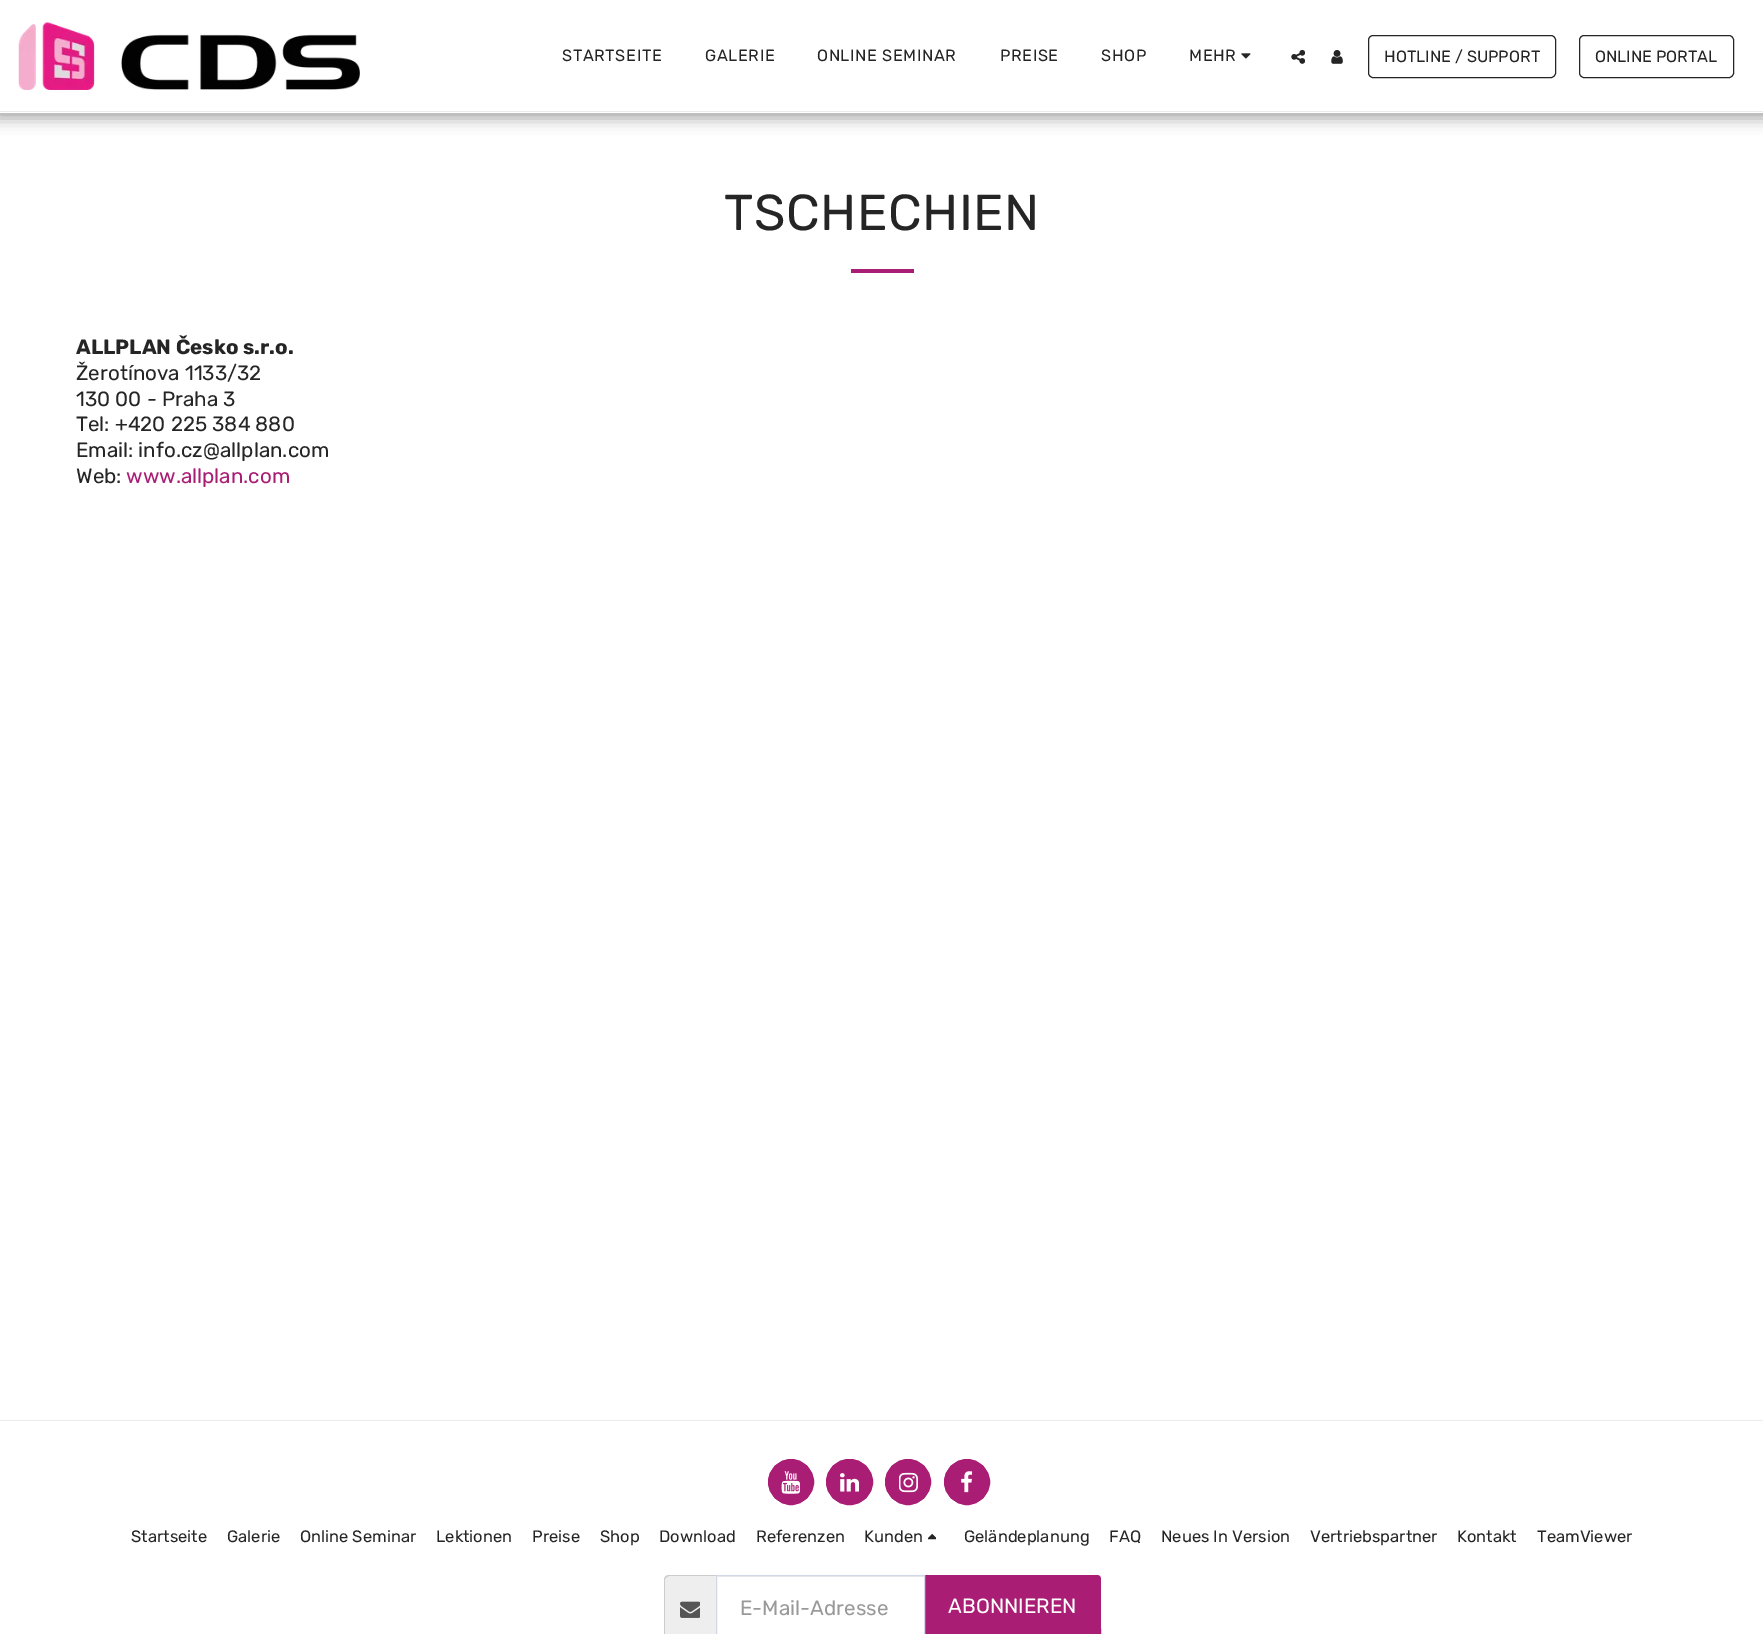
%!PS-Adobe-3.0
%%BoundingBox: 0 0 1763 1634
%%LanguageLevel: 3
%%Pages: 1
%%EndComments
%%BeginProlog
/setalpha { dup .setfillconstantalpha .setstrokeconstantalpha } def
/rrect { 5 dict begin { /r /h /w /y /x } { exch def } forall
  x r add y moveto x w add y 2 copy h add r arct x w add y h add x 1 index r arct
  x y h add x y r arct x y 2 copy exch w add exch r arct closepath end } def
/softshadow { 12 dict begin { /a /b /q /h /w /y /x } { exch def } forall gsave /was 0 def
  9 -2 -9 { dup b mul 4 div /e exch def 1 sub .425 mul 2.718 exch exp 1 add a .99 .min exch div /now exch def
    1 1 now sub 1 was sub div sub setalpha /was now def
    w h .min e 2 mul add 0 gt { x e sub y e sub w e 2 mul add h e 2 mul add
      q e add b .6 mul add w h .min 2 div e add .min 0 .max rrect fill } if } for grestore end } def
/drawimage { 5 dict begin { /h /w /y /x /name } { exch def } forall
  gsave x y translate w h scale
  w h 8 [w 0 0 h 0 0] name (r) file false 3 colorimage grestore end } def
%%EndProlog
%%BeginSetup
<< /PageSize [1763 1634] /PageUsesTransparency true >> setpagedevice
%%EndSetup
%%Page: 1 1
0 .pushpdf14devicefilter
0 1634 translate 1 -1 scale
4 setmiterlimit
1 setgray
0 0 1763 1634 rectfill
0 setgray
-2 0 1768 118 0 7.5 0.35 softshadow
1 setgray
0 0 1763 113 rectfill
0.922 setgray
0 111 1763 1 rectfill
(images/1.raw) 18 22 342 68 drawimage
(images/2.raw) 1241 53 10 6 drawimage
(images/3.raw) 1291 49 14 15 drawimage
(images/4.raw) 1331 50 12 14 drawimage
0.145 setgray
1368.5 35.5 187 42 4.5 rrect stroke
1579.5 35.5 154 42 4.5 rrect stroke
0.663 0.114 0.455 setrgbcolor
851 269 63 4 rectfill
0.922 setgray
0 1420 1763 1 rectfill
0.663 0.114 0.455 setrgbcolor
newpath 791 1482 22.5 0 360 arc closepath gsave fill grestore
stroke
(images/5.raw) 781 1471 19 23 drawimage
826.5 1459.5 46 45 22.5 rrect gsave fill grestore
stroke
(images/6.raw) 840 1473 19 19 drawimage
newpath 908 1482 22.5 0 360 arc closepath gsave fill grestore
stroke
(images/7.raw) 899 1472 19 21 drawimage
newpath 967 1482 22.5 0 360 arc closepath gsave fill grestore
stroke
(images/8.raw) 961 1471 12 22 drawimage
(images/9.raw) 928 1534 8 6 drawimage
0.933 setgray
newpath 669 1576 moveto 716 1576 lineto 716 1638 lineto 669 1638 lineto 667 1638 665 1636 665 1634 curveto 665 1580 lineto 665 1578 667 1576 669 1576 curveto closepath fill
0.8 setgray
newpath 669 1575 moveto 716 1575 lineto 716 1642 lineto 669 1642 lineto 666 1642 664 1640 664 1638 curveto 664 1580 lineto 664 1577 666 1575 669 1575 curveto closepath 669 1576 moveto 716 1576 lineto 716 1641 lineto 710 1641 669 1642 667 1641 curveto 665 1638 lineto 665 1579 lineto 667 1577 lineto closepath eofill
(images/10.raw) 680 1601 20 17 drawimage
0.925 setgray
718 1576 206 1 rectfill
0.663 0.114 0.455 setrgbcolor
newpath 924 1575 moveto 1096 1575 lineto 1099 1575 1101 1577 1101 1580 curveto 1101 1634 lineto 1101 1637 1099 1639 1096 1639 curveto 924 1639 lineto closepath fill
newpath 924 1575 moveto 925 1576 lineto 1098 1576 lineto 1099 1577 lineto 1100 1576 lineto 1097 1575 lineto closepath fill
0.831 0.843 0.898 setrgbcolor
716.5 1575.5 208 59 rectstroke
0.663 0.114 0.455 setrgbcolor
newpath 1100 1576 moveto 1101 1579 lineto 1101 1628 lineto 1101 1632 1102 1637 1100 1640 curveto 1100 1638 lineto 1100 1631 1101 1579 1099 1577 curveto closepath fill
/Rubik-Regular [16.25 0 0 -16.25 0 0] selectfont
0.145 setgray
562 61 moveto 0.6 0 (STARTSEITE) ashow
705 61 moveto 0.6 0 (GALERIE) ashow
817 61 moveto 0.6 0 (ONLINE SEMINAR) ashow
1000 61 moveto 0.6 0 (PREISE) ashow
1101 61 moveto 0.6 0 (SHOP) ashow
1189 61 moveto 0.6 0 (MEHR) ashow
1384 62 moveto (HOTLINE / SUPPORT) show
1595 62 moveto (ONLINE PORTAL) show
/Rubik-Regular [50.5 0 0 -50.5 0 0] selectfont
724 230 moveto 0.6 0 (TSCHECHIEN) ashow
/Rubik-Bold [20.6 0 0 -20.6 0 0] selectfont
76 354 moveto (ALLPLAN Česko s.r.o.) show
/Rubik-Regular [20.6 0 0 -20.6 0 0] selectfont
76 380 moveto (Žerotínova 1133/32) show
76 406 moveto (130 00 - Praha 3) show
76 431 moveto (Tel: +420 225 384 880) show
76 457 moveto (Email: info.cz@allplan.com) show
76 483 moveto (Web:) show
0.663 0.114 0.455 setrgbcolor
126 483 moveto (www.allplan.com) show
/Rubik-Regular [16.5 0 0 -16.5 0 0] selectfont
0.145 setgray
131 1542 moveto (Startseite) show
227 1542 moveto (Galerie) show
300 1542 moveto (Online Seminar) show
436 1542 moveto (Lektionen) show
532 1542 moveto (Preise) show
600 1542 moveto (Shop) show
659 1542 moveto (Download) show
756 1542 moveto (Referenzen) show
864 1542 moveto (Kunden) show
964 1542 moveto (Geländeplanung) show
1109 1542 moveto (FAQ) show
1161 1542 moveto (Neues In Version) show
1310 1542 moveto (Vertriebspartner) show
1457 1542 moveto (Kontakt) show
1537 1542 moveto (TeamViewer) show
/Rubik-Regular [20.6 0 0 -20.6 0 0] selectfont
0.6 setgray
740 1615 moveto (E-Mail-Adresse) show
1 setgray
948 1613 moveto (ABONNIEREN) show
.poppdf14devicefilter showpage
%%EOF
